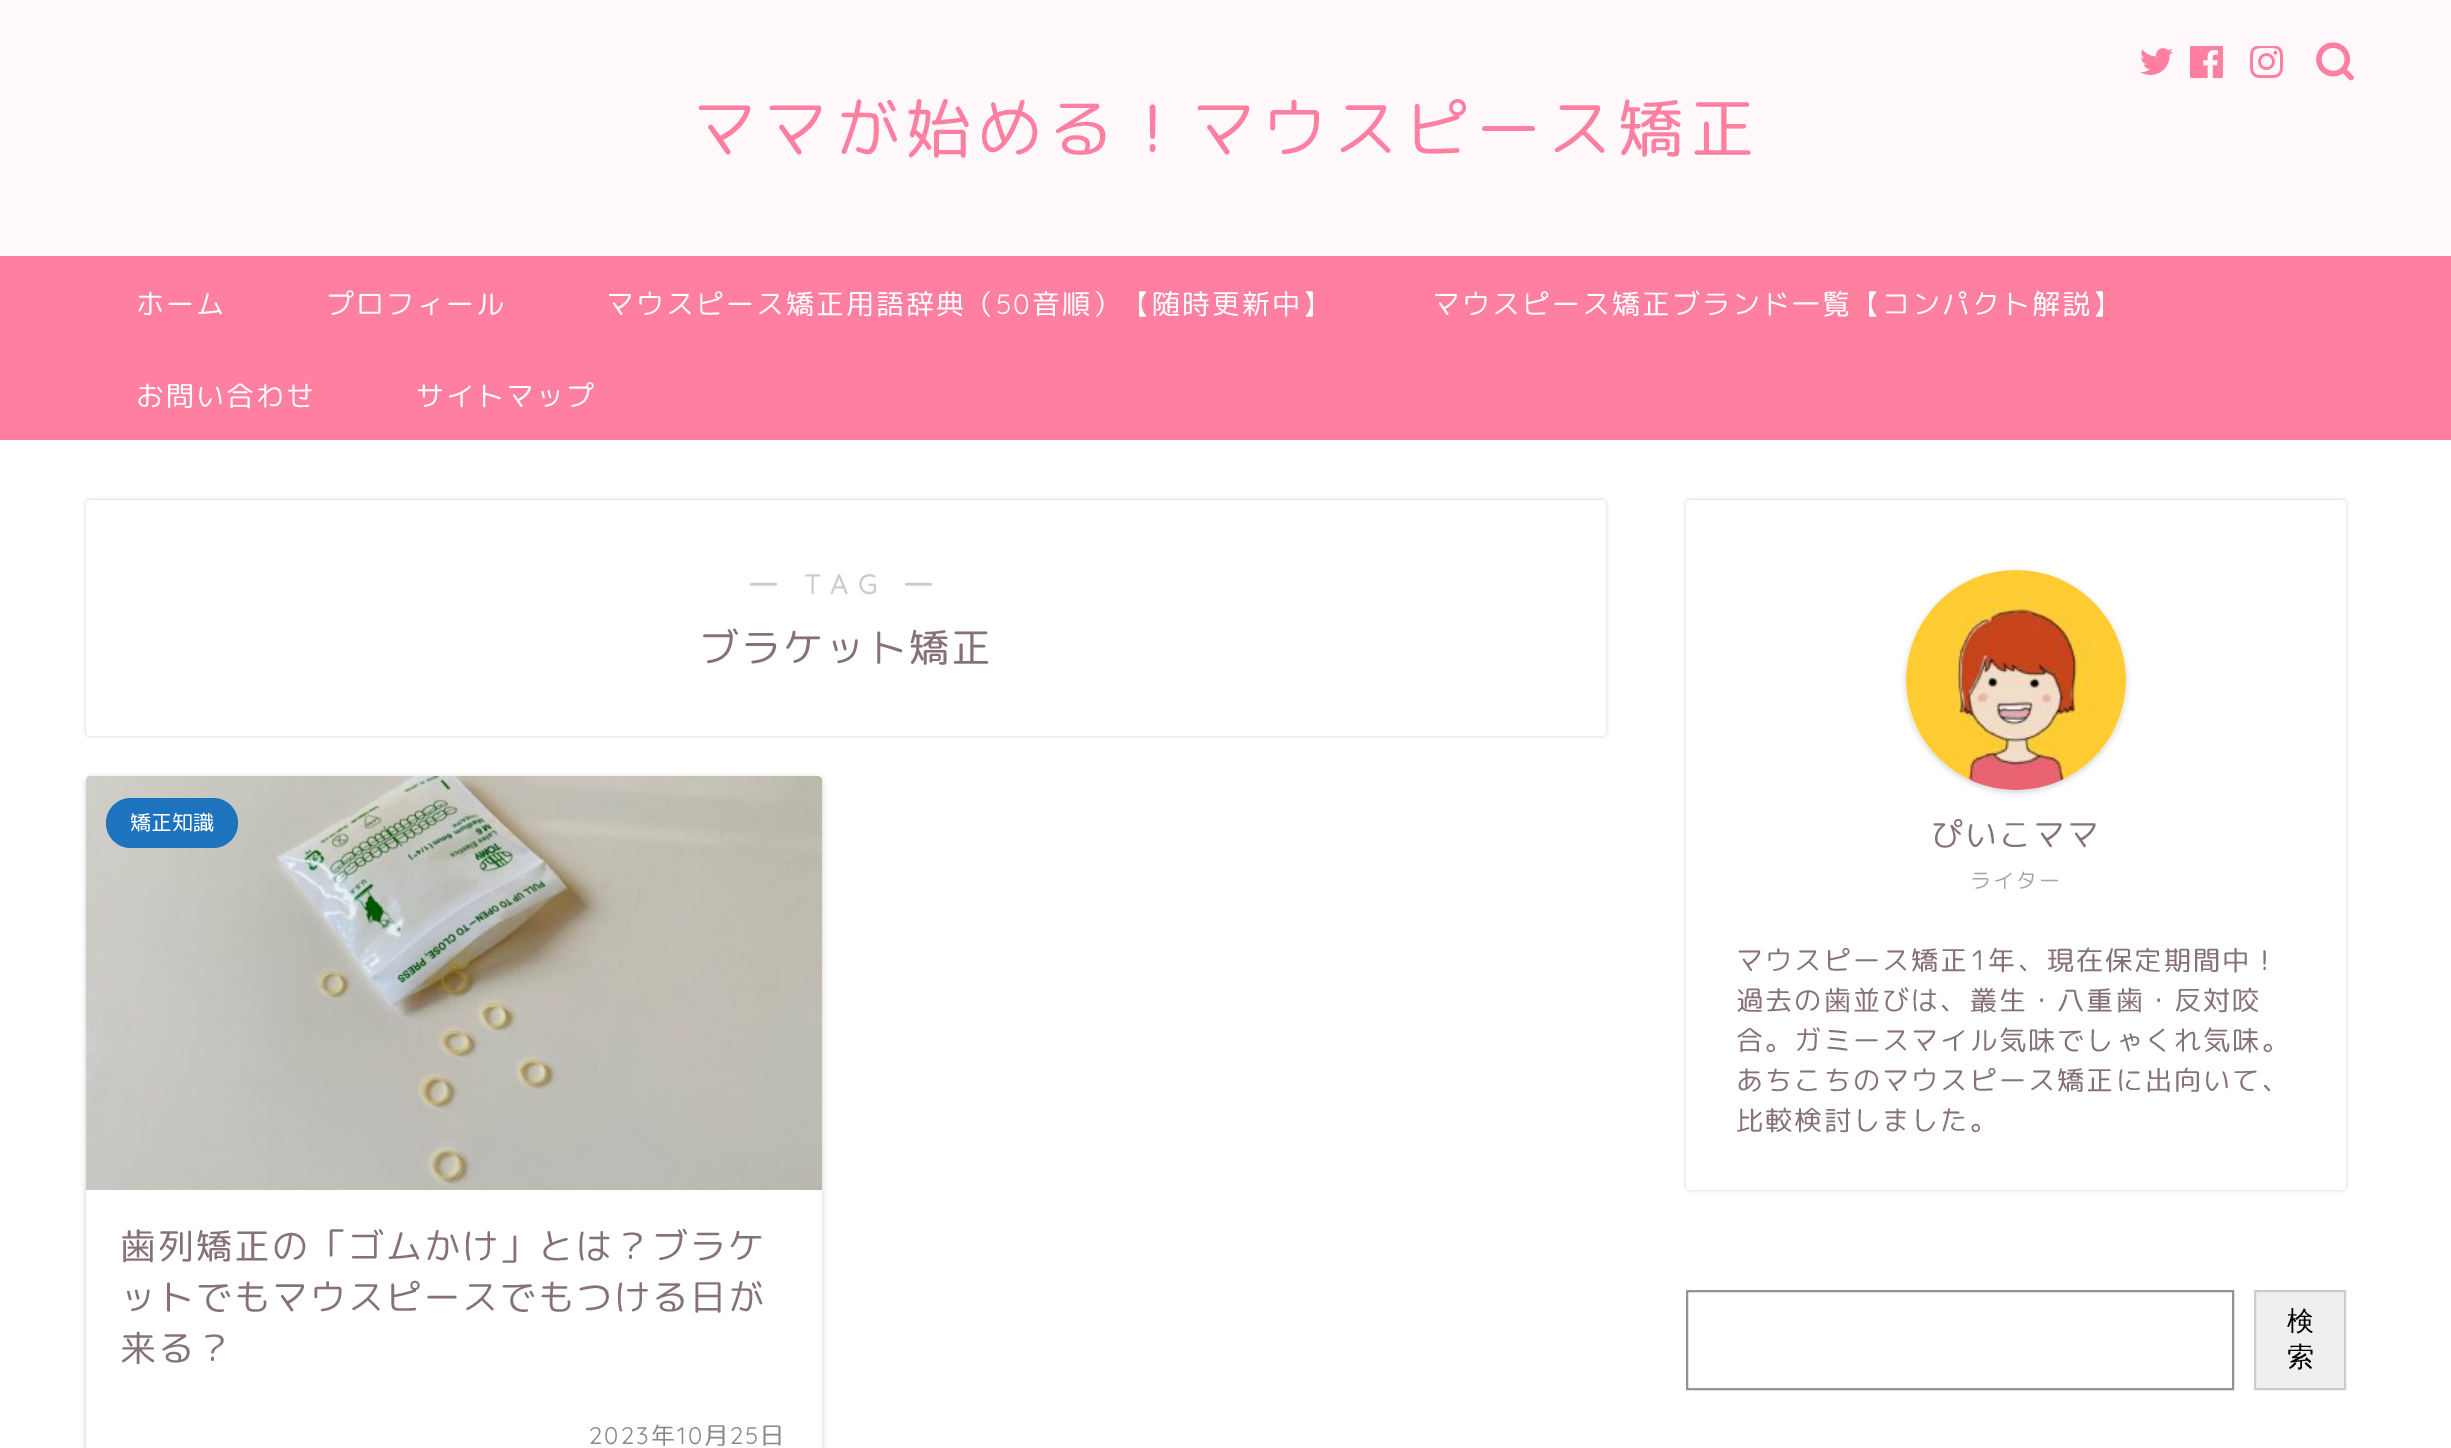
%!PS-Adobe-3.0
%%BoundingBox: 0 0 2451 1448
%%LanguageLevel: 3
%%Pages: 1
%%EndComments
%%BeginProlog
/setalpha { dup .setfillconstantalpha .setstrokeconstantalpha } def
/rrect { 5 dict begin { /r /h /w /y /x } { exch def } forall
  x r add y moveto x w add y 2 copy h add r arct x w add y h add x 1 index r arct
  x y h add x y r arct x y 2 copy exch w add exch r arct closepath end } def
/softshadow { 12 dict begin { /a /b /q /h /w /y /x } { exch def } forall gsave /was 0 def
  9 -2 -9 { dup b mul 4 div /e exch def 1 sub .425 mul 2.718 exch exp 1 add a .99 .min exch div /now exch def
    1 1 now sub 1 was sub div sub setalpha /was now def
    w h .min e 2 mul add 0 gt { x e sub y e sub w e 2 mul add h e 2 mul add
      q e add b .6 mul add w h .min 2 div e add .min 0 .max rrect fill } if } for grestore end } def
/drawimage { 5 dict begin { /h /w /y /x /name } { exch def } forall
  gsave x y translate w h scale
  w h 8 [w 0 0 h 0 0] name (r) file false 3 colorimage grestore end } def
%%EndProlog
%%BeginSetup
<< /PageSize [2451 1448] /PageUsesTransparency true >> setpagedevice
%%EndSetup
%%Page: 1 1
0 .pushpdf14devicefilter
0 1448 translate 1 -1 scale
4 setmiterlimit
1 setgray
0 0 2451 1448 rectfill
1 0.976 0.984 setrgbcolor
0 0 2451 256 rectfill
(images/1.raw) 2140 48 33 27 drawimage
(images/2.raw) 2190 46 33 33 drawimage
(images/3.raw) 2250 46 33 33 drawimage
(images/4.raw) 2316 42 38 39 drawimage
1 0.498 0.631 setrgbcolor
0 256 2451 184 rectfill
0 setgray
86 500 1520 236 4 2 0.18 softshadow
1 setgray
86 500 1520 236 4 rrect fill
0 setgray
86 778 736 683 4 3 0.18 softshadow
1 setgray
86 776 736 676 4 rrect fill
(images/5.raw) 86 776 736 414 drawimage
0.118 0.451 0.745 setrgbcolor
106 798 132 50 25 rrect fill
0 setgray
1686 500 660 690 4 2 0.18 softshadow
1 setgray
1686 500 660 690 4 rrect fill
0 setgray
1906 572 220 220 110 3 0.18 softshadow
1 setgray
newpath 2016 680 110 0 360 arc closepath fill
(images/6.raw) 1906 570 220 220 drawimage
0.58 setgray
2 setlinewidth
1687 1291 546 98 rectstroke
0.937 setgray
newpath 2255 1291 moveto 2345 1291 lineto 2345 1389 lineto 2255 1389 lineto closepath gsave fill grestore
0.8 setgray
stroke
/RoundedMplus1c-Regular [65.25 0 0 -65.25 0 0] selectfont
1 0.498 0.631 setrgbcolor
692 152 moveto 6 0 (ママが始める！マウスピース矯正) ashow
/RoundedMplus1c-Regular [28 0 0 -28 0 0] selectfont
1 setgray
136 314 moveto 2 0 (ホーム) ashow
326 314 moveto 2 0 (プロフィール) ashow
606 314 moveto 2 0 (マウスピース矯正用語辞典（) ashow
/Quicksand-Light [28 0 0 -28 0 0] selectfont
996 314 moveto 2 0 (50) ashow
/RoundedMplus1c-Regular [28 0 0 -28 0 0] selectfont
1032 314 moveto 2 0 (音順）【随時更新中】) ashow
1432 314 moveto 2 0 (マウスピース矯正ブランド一覧【コンパクト解説】) ashow
136 406 moveto 2 0 (お問い合わせ) ashow
416 406 moveto 2 0 (サイトマップ) ashow
/RoundedMplus1cBold-Bold [27.2 0 0 -27.2 0 0] selectfont
0.8 setgray
750 594 moveto 10 0 (―) ashow
/Quicksand-Bold [27.2 0 0 -27.2 0 0] selectfont
804 594 moveto 10 0 (TAG) ashow
/RoundedMplus1cBold-Bold [27.2 0 0 -27.2 0 0] selectfont
905 594 moveto 10 0 (―) ashow
/RoundedMplus1c-Regular [40 0 0 -40 0 0] selectfont
0.529 0.443 0.475 setrgbcolor
699 662 moveto 2 0 (ブラケット矯正) ashow
/RoundedMplus1c-Regular [21 0 0 -21 0 0] selectfont
1 setgray
130 830 moveto (矯正知識) show
/RoundedMplus1c-Regular [36 0 0 -36 0 0] selectfont
0.529 0.443 0.475 setrgbcolor
120 1259 moveto 2 0 (歯列矯正の「ゴムかけ」とは？ブラケ) ashow
120 1310 moveto 2 0 (ットでもマウスピースでもつける日が) ashow
120 1361 moveto 2 0 (来る？) ashow
/Quicksand-Light [24 0 0 -24 0 0] selectfont
0.533 setgray
589 1444 moveto 2 0 (2023) ashow
/RoundedMplus1c-Regular [24 0 0 -24 0 0] selectfont
651 1444 moveto 2 0 (年) ashow
/Quicksand-Light [24 0 0 -24 0 0] selectfont
677 1444 moveto 2 0 (10) ashow
/RoundedMplus1c-Regular [24 0 0 -24 0 0] selectfont
704 1444 moveto 2 0 (月) ashow
/Quicksand-Light [24 0 0 -24 0 0] selectfont
730 1444 moveto 2 0 (25) ashow
/RoundedMplus1c-Regular [24 0 0 -24 0 0] selectfont
760 1444 moveto 2 0 (日) ashow
/RoundedMplus1c-Regular [32 0 0 -32 0 0] selectfont
0.529 0.443 0.475 setrgbcolor
1931 846 moveto 2 0 (ぴいこママ) ashow
/RoundedMplus1c-Regular [21 0 0 -21 0 0] selectfont
0.651 setgray
1970 888 moveto 2 0 (ライター) ashow
/RoundedMplus1c-Regular [27.2 0 0 -27.2 0 0] selectfont
0.529 0.443 0.475 setrgbcolor
1736 970 moveto 2 0 (マウスピース矯正1年、現在保定期間中！) ashow
1736 1010 moveto 2 0 (過去の歯並びは、叢生・八重歯・反対咬) ashow
1736 1050 moveto 2 0 (合。ガミースマイル気味でしゃくれ気味。) ashow
1736 1090 moveto 2 0 (あちこちのマウスピース矯正に出向いて、) ashow
1736 1130 moveto 2 0 (比較検討しました。) ashow
/WenQuanYiZenHei-Medium [27 0 0 -27 0 0] selectfont
0 setgray
2287 1330 moveto (検) show
2287 1366 moveto (索) show
.poppdf14devicefilter showpage
%%EOF
